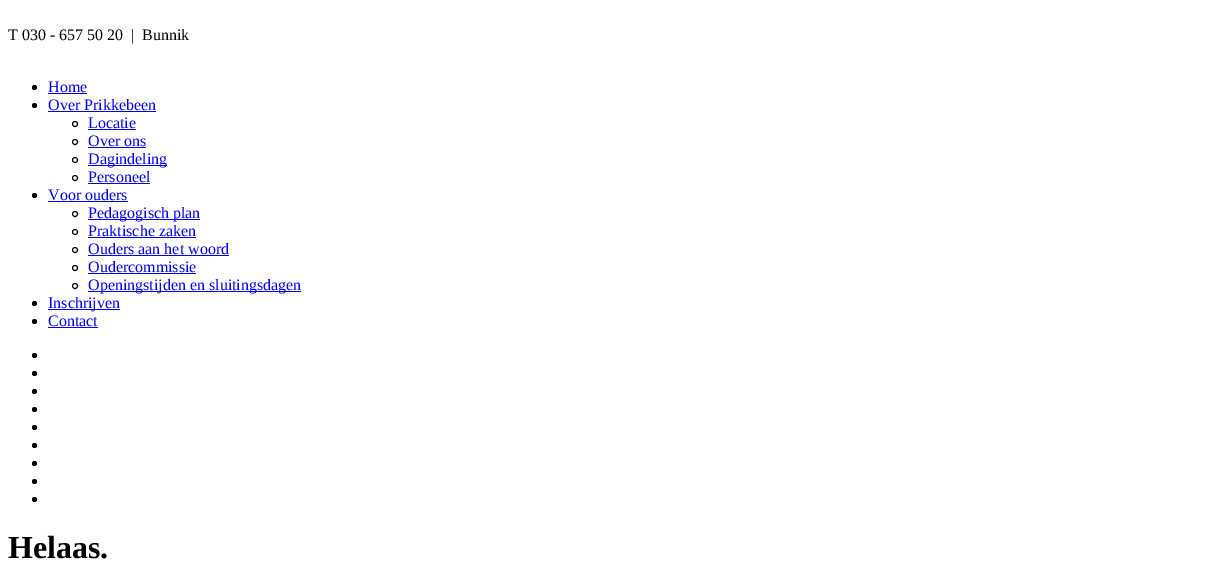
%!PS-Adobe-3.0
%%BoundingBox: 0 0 1217 578
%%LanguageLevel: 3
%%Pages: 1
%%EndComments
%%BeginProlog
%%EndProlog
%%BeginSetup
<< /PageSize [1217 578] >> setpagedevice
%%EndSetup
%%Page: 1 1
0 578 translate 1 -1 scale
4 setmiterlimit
1 setgray
0 0 1217 578 rectfill
0 setgray
newpath 34.5 87.5 2.5 0 360 arc closepath fill
0 0 0.933 setrgbcolor
48 93 39 1 rectfill
0 setgray
newpath 34.5 105.5 2.5 0 360 arc closepath fill
0 0 0.933 setrgbcolor
48 111 108 1 rectfill
0 setgray
newpath 75 124 2.5 0 360 arc closepath stroke
0 0 0.933 setrgbcolor
88 129 48 1 rectfill
0 setgray
newpath 75 142 2.5 0 360 arc closepath stroke
0 0 0.933 setrgbcolor
88 147 58 1 rectfill
0 setgray
newpath 75 160 2.5 0 360 arc closepath stroke
0 0 0.933 setrgbcolor
88 165 79 1 rectfill
0 setgray
newpath 75 178 2.5 0 360 arc closepath stroke
0 0 0.933 setrgbcolor
88 183 62 1 rectfill
0 setgray
newpath 34.5 195.5 2.5 0 360 arc closepath fill
0 0 0.933 setrgbcolor
48 201 80 1 rectfill
0 setgray
newpath 75 214 2.5 0 360 arc closepath stroke
0 0 0.933 setrgbcolor
88 219 112 1 rectfill
0 setgray
newpath 75 232 2.5 0 360 arc closepath stroke
0 0 0.933 setrgbcolor
88 237 108 1 rectfill
0 setgray
newpath 75 250 2.5 0 360 arc closepath stroke
0 0 0.933 setrgbcolor
88 255 141 1 rectfill
0 setgray
newpath 75 268 2.5 0 360 arc closepath stroke
0 0 0.933 setrgbcolor
88 273 108 1 rectfill
0 setgray
newpath 75 286 2.5 0 360 arc closepath stroke
0 0 0.933 setrgbcolor
88 291 213 1 rectfill
0 setgray
newpath 34.5 303.5 2.5 0 360 arc closepath fill
0 0 0.933 setrgbcolor
48 309 72 1 rectfill
0 setgray
newpath 34.5 321.5 2.5 0 360 arc closepath fill
0 0 0.933 setrgbcolor
48 327 50 1 rectfill
0 setgray
newpath 34.5 355.5 2.5 0 360 arc closepath fill
newpath 34.5 373.5 2.5 0 360 arc closepath fill
newpath 34.5 391.5 2.5 0 360 arc closepath fill
newpath 34.5 409.5 2.5 0 360 arc closepath fill
newpath 34.5 427.5 2.5 0 360 arc closepath fill
newpath 34.5 445.5 2.5 0 360 arc closepath fill
newpath 34.5 463.5 2.5 0 360 arc closepath fill
newpath 34.5 481.5 2.5 0 360 arc closepath fill
newpath 34.5 499.5 2.5 0 360 arc closepath fill
/LiberationSerif-Regular [16 0 0 -16 0 0] selectfont
8 40 moveto (T 030 - 657 50 20  |  Bunnik) show
0 0 0.933 setrgbcolor
48 92 moveto (Home) show
48 110 moveto (Over Prikkebeen) show
88 128 moveto (Locatie) show
88 146 moveto (Over ons) show
88 164 moveto (Dagindeling) show
88 182 moveto (Personeel) show
48 200 moveto (Voor ouders) show
88 218 moveto (Pedagogisch plan) show
88 236 moveto (Praktische zaken) show
88 254 moveto (Ouders aan het woord) show
88 272 moveto (Oudercommissie) show
88 290 moveto (Openingstijden en sluitingsdagen) show
48 308 moveto (Inschrijven) show
48 326 moveto (Contact) show
/LiberationSerif-Bold [32 0 0 -32 0 0] selectfont
0 setgray
8 558 moveto (Helaas.) show
showpage
%%EOF
